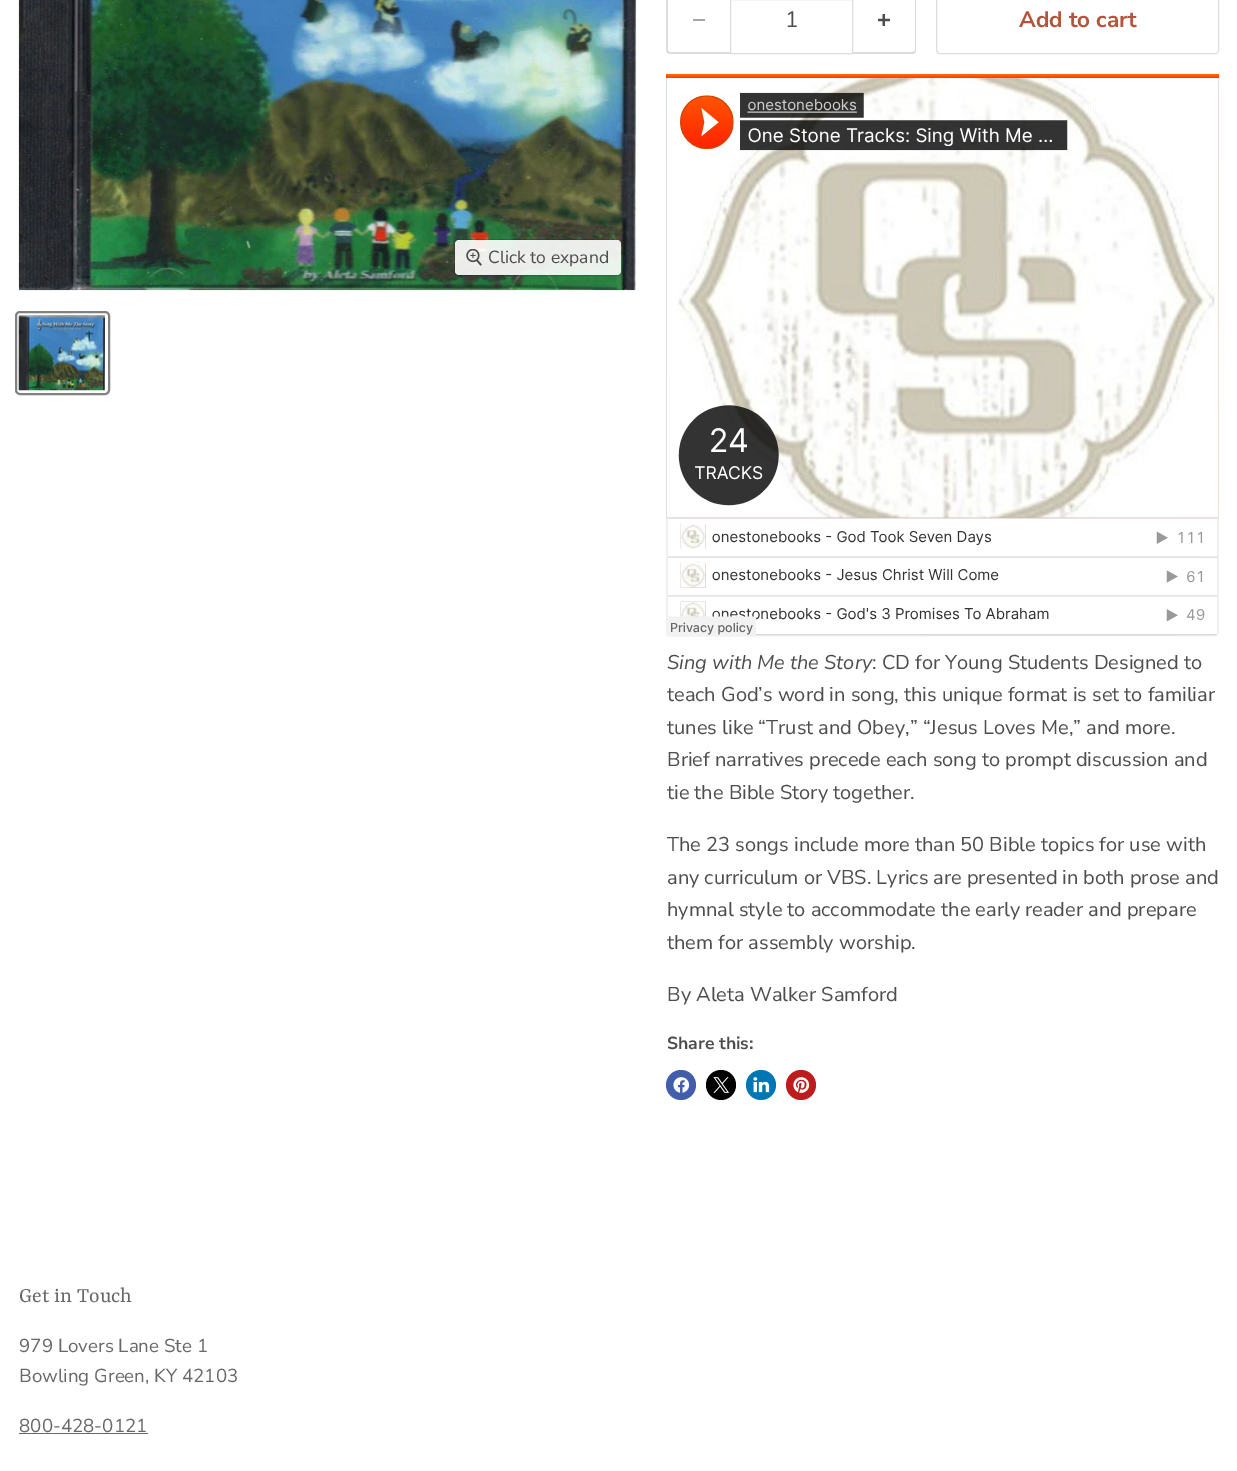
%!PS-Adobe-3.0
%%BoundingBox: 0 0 1237 1471
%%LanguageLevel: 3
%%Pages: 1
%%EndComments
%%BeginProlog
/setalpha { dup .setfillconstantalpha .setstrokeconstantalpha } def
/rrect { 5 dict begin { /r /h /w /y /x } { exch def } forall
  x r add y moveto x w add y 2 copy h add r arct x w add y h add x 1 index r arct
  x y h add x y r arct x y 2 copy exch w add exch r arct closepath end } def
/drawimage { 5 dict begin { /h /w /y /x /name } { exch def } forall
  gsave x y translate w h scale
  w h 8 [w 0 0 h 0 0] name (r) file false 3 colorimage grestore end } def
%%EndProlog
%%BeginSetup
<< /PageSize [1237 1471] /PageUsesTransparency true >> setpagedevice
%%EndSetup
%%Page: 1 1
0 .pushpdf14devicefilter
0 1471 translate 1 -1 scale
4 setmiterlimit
1 setgray
0 0 1237 1471 rectfill
(images/1.raw) 18 0 619 291 drawimage
0.15 setalpha
0 setgray
454.5 239.5 168 36 4.5 rrect stroke
0.9 setalpha
1 setgray
455 240 166 35 4 rrect fill
1 setalpha
(images/2.raw) 466 249 16 17 drawimage
0.506 setgray
2 setlinewidth
16 312 93 82 4 rrect stroke
(images/3.raw) 18 315 87 76 drawimage
0.867 setgray
newpath 670 -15 moveto 730 -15 lineto 730 54 lineto 670 54 lineto 668 54 666 52 666 50 curveto 666 -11 lineto 666 -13 668 -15 670 -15 curveto closepath 670 -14 moveto 730 -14 lineto 730 52 lineto 670 52 lineto 669 52 668 51 668 50 curveto 668 -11 lineto 668 -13 669 -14 670 -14 curveto closepath eofill
0.651 setgray
693 19 12 2 rectfill
0.867 setgray
1 setlinewidth
730.5 -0.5 122 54 rectstroke
newpath 852 -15 moveto 912 -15 lineto 915 -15 916 -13 916 -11 curveto 916 50 lineto 916 52 915 54 912 54 curveto 852 54 lineto closepath 852 -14 moveto 912 -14 lineto 914 -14 915 -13 915 -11 curveto 915 50 lineto 915 51 914 52 912 52 curveto 852 52 lineto closepath eofill
(images/4.raw) 878 14 12 12 drawimage
936.5 -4.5 282 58 3.5 rrect stroke
(images/5.raw) 666 74 553 563 drawimage
0.259 0.365 0.671 setrgbcolor
newpath 681 1085 15 0 360 arc closepath fill
(images/6.raw) 673 1077 17 16 drawimage
0 setgray
newpath 721 1085 15 0 360 arc closepath fill
(images/7.raw) 713 1077 16 16 drawimage
0 0.467 0.71 setrgbcolor
newpath 761 1085 15 0 360 arc closepath fill
(images/8.raw) 753 1077 17 16 drawimage
0.741 0.11 0.11 setrgbcolor
newpath 801 1085 15 0 360 arc closepath fill
(images/9.raw) 793 1077 17 16 drawimage
0.408 setgray
19 1433 129 1 rectfill
/NunitoSans-Regular [17.5 0 0 -17.5 0 0] selectfont
0.302 setgray
488 263 moveto (Click to expand) show
/NunitoSans-Regular [22.5 0 0 -22.5 0 0] selectfont
785 27 moveto (1) show
/NunitoSans-Bold [22.5 0 0 -22.5 0 0] selectfont
0.694 0.333 0.235 setrgbcolor
1019 27 moveto (Add to cart) show
/NunitoSans-Italic [20 0 0 -20 0 0] selectfont
0.302 setgray
667 669 moveto (Sing with Me the Story) show
/NunitoSans-Regular [20 0 0 -20 0 0] selectfont
872 669 moveto (: CD for Young Students Designed to) show
667 701 moveto (teach God’s word in song, this unique format is set to familiar) show
667 734 moveto (tunes like “Trust and Obey,” “Jesus Loves Me,” and more.) show
667 766 moveto (Brief narratives precede each song to prompt discussion and) show
667 799 moveto (tie the Bible Story together.) show
667 851 moveto (The 23 songs include more than 50 Bible topics for use with) show
667 884 moveto (any curriculum or VBS. Lyrics are presented in both prose and) show
667 916 moveto (hymnal style to accommodate the early reader and prepare) show
667 949 moveto (them for assembly worship.) show
667 1001 moveto (By Aleta Walker Samford) show
/NunitoSans-Bold [17.5 0 0 -17.5 0 0] selectfont
667 1049 moveto (Share this:) show
/Yrsa-Regular [22.5 0 0 -22.5 0 0] selectfont
0.408 setgray
19 1302 moveto (Get in Touch) show
/NunitoSans-Regular [18.75 0 0 -18.75 0 0] selectfont
19 1352 moveto (979 Lovers Lane Ste 1) show
19 1382 moveto (Bowling Green, KY 42103) show
19 1432 moveto (800-428-0121) show
.poppdf14devicefilter showpage
%%EOF
